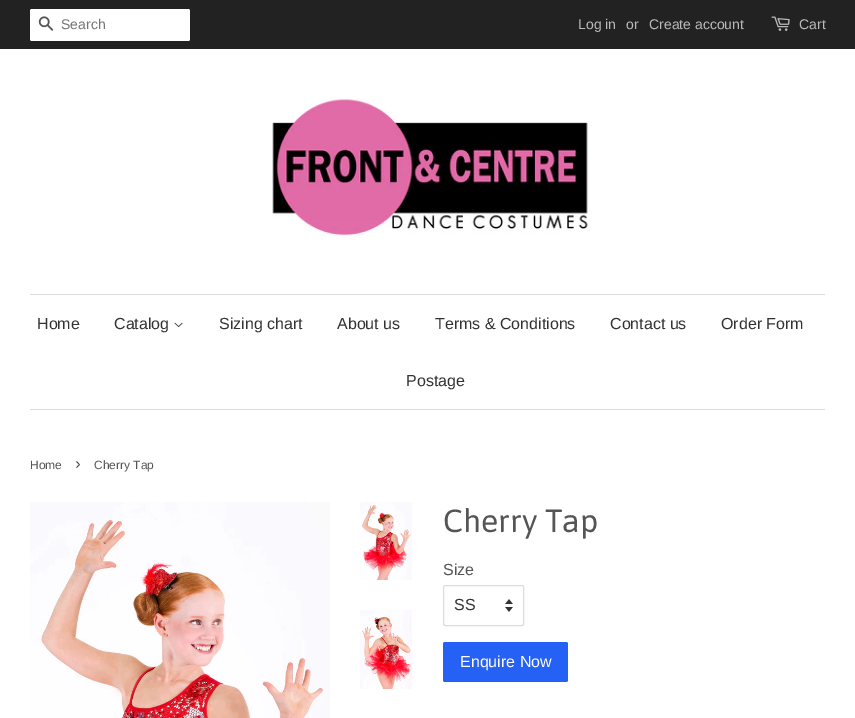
%!PS-Adobe-3.0
%%BoundingBox: 0 0 855 718
%%LanguageLevel: 3
%%Pages: 1
%%EndComments
%%BeginProlog
/rrect { 5 dict begin { /r /h /w /y /x } { exch def } forall
  x r add y moveto x w add y 2 copy h add r arct x w add y h add x 1 index r arct
  x y h add x y r arct x y 2 copy exch w add exch r arct closepath end } def
/drawimage { 5 dict begin { /h /w /y /x /name } { exch def } forall
  gsave x y translate w h scale
  w h 8 [w 0 0 h 0 0] name (r) file false 3 colorimage grestore end } def
%%EndProlog
%%BeginSetup
<< /PageSize [855 718] >> setpagedevice
%%EndSetup
%%Page: 1 1
0 718 translate 1 -1 scale
4 setmiterlimit
1 setgray
0 0 855 718 rectfill
0.133 setgray
0 0 855 49 rectfill
1 setgray
30 9 160 32 2 rrect fill
(images/1.raw) 38 16 16 15 drawimage
(images/2.raw) 771 16 19 15 drawimage
(images/3.raw) 272 97 318 139 drawimage
0.867 setgray
30 294 795 1 rectfill
30 409 795 1 rectfill
(images/4.raw) 174 322 9 6 drawimage
(images/5.raw) 30 502 300 216 drawimage
(images/6.raw) 360 502 52 78 drawimage
(images/7.raw) 360 610 52 79 drawimage
(images/8.raw) 505 599 8 13 drawimage
443.5 585.5 80 40 1.5 rrect stroke
0.149 0.38 0.965 setrgbcolor
443 642 125 40 2 rrect fill
/LiberationSans-Regular [14 0 0 -14 0 0] selectfont
0.459 setgray
61 29 moveto (Search) show
0.733 setgray
578 29 moveto (Log in) show
626 29 moveto (or) show
649 29 moveto (Create account) show
799 29 moveto (Cart) show
/LiberationSans-Regular [16 0 0 -16 0 0] selectfont
0.2 setgray
37 329 moveto (Home) show
114 329 moveto (Catalog) show
219 329 moveto (Sizing chart) show
337 329 moveto (About us) show
435 329 moveto (Terms & Conditions) show
610 329 moveto (Contact us) show
721 329 moveto (Order Form) show
406 386 moveto (Postage) show
/LiberationSans-Regular [12 0 0 -12 0 0] selectfont
0.333 setgray
30 469 moveto (Home) show
/LiberationSans-Regular [17 0 0 -17 0 0] selectfont
75 469 moveto (›) show
/LiberationSans-Regular [12 0 0 -12 0 0] selectfont
94 469 moveto (Cherry Tap) show
/Asap-Regular [32 0 0 -32 0 0] selectfont
443 532 moveto (Cherry Tap) show
/LiberationSans-Regular [16 0 0 -16 0 0] selectfont
443 575 moveto (Size) show
0.2 setgray
454 610 moveto (SS) show
1 setgray
460 667 moveto (Enquire Now) show
showpage
%%EOF
